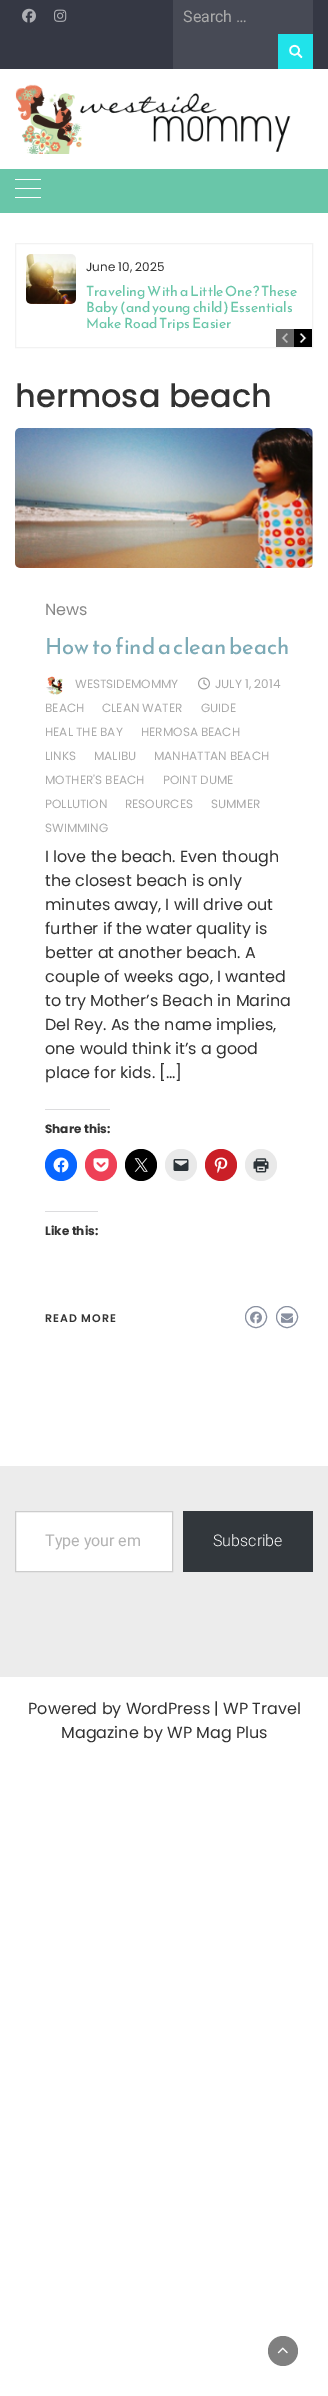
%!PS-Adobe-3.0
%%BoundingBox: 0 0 328 2396
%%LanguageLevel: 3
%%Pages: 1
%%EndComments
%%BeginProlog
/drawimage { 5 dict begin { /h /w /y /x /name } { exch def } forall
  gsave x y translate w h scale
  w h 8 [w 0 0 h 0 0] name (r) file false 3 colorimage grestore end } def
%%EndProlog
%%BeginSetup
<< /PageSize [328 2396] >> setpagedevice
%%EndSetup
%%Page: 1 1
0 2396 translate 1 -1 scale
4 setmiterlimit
1 setgray
0 0 328 2396 rectfill
0.208 0.22 0.267 setrgbcolor
0 0 328 69 rectfill
(images/1.raw) 22 8 14 15 drawimage
(images/2.raw) 54 9 13 13 drawimage
0.278 0.29 0.333 setrgbcolor
173 0 140 69 rectfill
0.125 0.89 0.918 setrgbcolor
278 34 35 35 rectfill
(images/3.raw) 289 44 14 15 drawimage
(images/4.raw) 15 84 276 70 drawimage
0.412 0.776 0.663 setrgbcolor
0 169 328 44 rectfill
1 setgray
15 179 26 1 rectfill
15 188 26 1 rectfill
15 197 26 1 rectfill
0.949 setgray
15.5 243.5 297 104 rectstroke
(images/5.raw) 26 254 50 50 drawimage
0.4 setgray
276 329 18 18 rectfill
(images/6.raw) 281 333 7 10 drawimage
0 setgray
294 329 18 18 rectfill
(images/7.raw) 299 333 8 10 drawimage
(images/8.raw) 15 428 298 140 drawimage
(images/9.raw) 46 676 17 19 drawimage
(images/10.raw) 198 677 12 13 drawimage
0.863 0.863 0.871 setrgbcolor
45 1109 65 1 rectfill
0.031 0.4 1 setrgbcolor
newpath 61 1165 16 0 360 arc closepath fill
(images/11.raw) 53 1157 16 16 drawimage
0.933 0.251 0.337 setrgbcolor
newpath 101 1165 16 0 360 arc closepath fill
(images/12.raw) 93 1158 16 14 drawimage
0 setgray
newpath 141 1165 16 0 360 arc closepath fill
(images/13.raw) 134 1158 14 14 drawimage
0.914 setgray
newpath 181 1165 16 0 360 arc closepath fill
(images/14.raw) 173 1159 16 12 drawimage
0.792 0.122 0.153 setrgbcolor
newpath 221 1165 16 0 360 arc closepath fill
(images/15.raw) 214 1157 14 16 drawimage
0.914 setgray
newpath 261 1165 16 0 360 arc closepath fill
(images/16.raw) 253 1158 16 15 drawimage
0.863 0.863 0.871 setrgbcolor
45 1211 53 1 rectfill
0.537 0.565 0.627 setrgbcolor
newpath 256 1317 10.5 0 360 arc closepath stroke
(images/17.raw) 250 1311 12 13 drawimage
newpath 287 1317 10.5 0 360 arc closepath stroke
(images/18.raw) 281 1313 12 10 drawimage
0.925 setgray
0 1466 328 211 rectfill
1 setgray
newpath 15.5 1511.5 moveto 172.5 1511.5 lineto 172.5 1571.5 lineto 15.5 1571.5 lineto closepath gsave fill grestore
0.8 setgray
stroke
0.196 0.216 0.235 setrgbcolor
183 1511 130 61 rectfill
0.502 setgray
newpath 283 2351 15 0 360 arc closepath fill
(images/19.raw) 277 2347 11 7 drawimage
/Roboto-Regular [16 0 0 -16 0 0] selectfont
0.667 setgray
183 22 moveto (Search …) show
/Poppins-Regular [12 0 0 -12 0 0] selectfont
0.2 setgray
86 271 moveto (June 10, 2025) show
/ReemKufi-Regular [14 0 0 -14 0 0] selectfont
0.412 0.776 0.663 setrgbcolor
86 296 moveto (Traveling With a Little One? These) show
86 312 moveto (Baby \(and young child\) Essentials) show
86 328 moveto (Make Road Trips Easier) show
/Poppins-Medium [32 0 0 -32 0 0] selectfont
0.2 setgray
15 407 moveto (hermosa beach) show
/Poppins-Regular [16 0 0 -16 0 0] selectfont
0.533 setgray
45 615 moveto (News) show
/ReemKufi-Regular [22 0 0 -22 0 0] selectfont
0.486 0.667 0.714 setrgbcolor
45 654 moveto (How to find a clean beach) show
/Poppins-Regular [12 0 0 -12 0 0] selectfont
0.667 setgray
75 688 moveto (WESTSIDEMOMMY) show
215 688 moveto (JULY 1, 2014) show
45 712 moveto (BEACH) show
102 712 moveto (CLEAN WATER) show
201 712 moveto (GUIDE) show
45 736 moveto (HEAL THE BAY) show
141 736 moveto (HERMOSA BEACH) show
45 760 moveto (LINKS) show
94 760 moveto (MALIBU) show
154 760 moveto (MANHATTAN BEACH) show
45 784 moveto (MOTHER'S BEACH) show
163 784 moveto (POINT DUME) show
45 808 moveto (POLLUTION) show
125 808 moveto (RESOURCES) show
211 808 moveto (SUMMER) show
45 832 moveto (SWIMMING) show
/Poppins-Regular [16 0 0 -16 0 0] selectfont
0.2 setgray
45 862 moveto (I love the beach. Even though) show
45 886 moveto (the closest beach is only) show
45 910 moveto (minutes away, I will drive out) show
45 934 moveto (further if the water quality is) show
45 958 moveto (better at another beach. A) show
45 982 moveto (couple of weeks ago, I wanted) show
45 1006 moveto (to try Mother’s Beach in Marina) show
45 1030 moveto (Del Rey. As the name implies,) show
45 1054 moveto (one would think it’s a good) show
45 1078 moveto (place for kids. […]) show
/Poppins-Bold [12 0 0 -12 0 0] selectfont
45 1133 moveto (Share this:) show
45 1235 moveto (Like this:) show
/Poppins-SemiBold [11 0 0 -11 0 0] selectfont
45 1322 moveto 1 0 (READ MORE) ashow
/Roboto-Regular [16 0 0 -16 0 0] selectfont
0.702 setgray
45 1546 moveto (Type your em) show
/Roboto-Light [16 0 0 -16 0 0] selectfont
1 setgray
213 1546 moveto (Subscribe) show
/Poppins-Regular [16 0 0 -16 0 0] selectfont
0.2 setgray
28 1714 moveto (Powered by WordPress | WP Travel) show
61 1738 moveto (Magazine by WP Mag Plus) show
showpage
%%EOF
